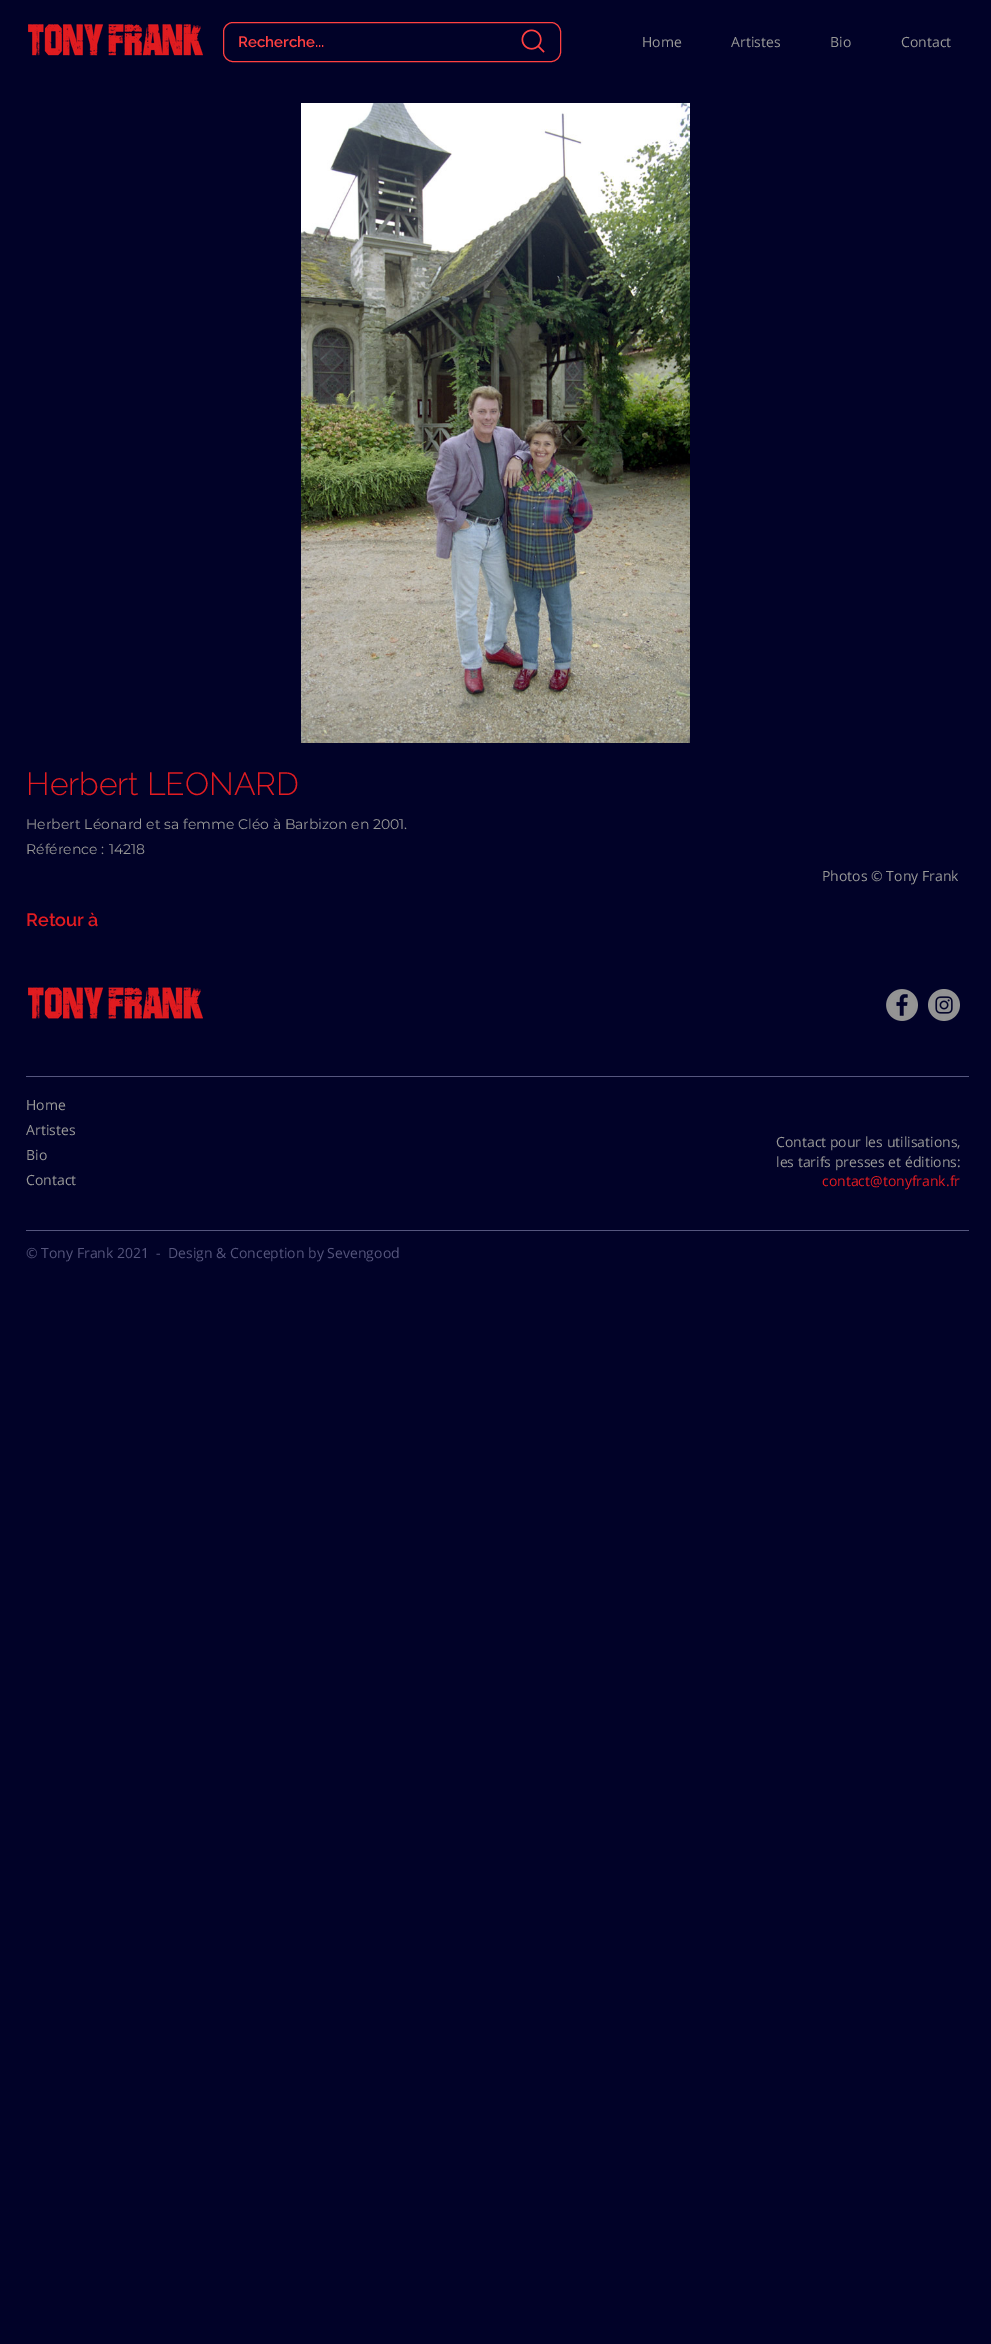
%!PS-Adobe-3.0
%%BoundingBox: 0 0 991 2344
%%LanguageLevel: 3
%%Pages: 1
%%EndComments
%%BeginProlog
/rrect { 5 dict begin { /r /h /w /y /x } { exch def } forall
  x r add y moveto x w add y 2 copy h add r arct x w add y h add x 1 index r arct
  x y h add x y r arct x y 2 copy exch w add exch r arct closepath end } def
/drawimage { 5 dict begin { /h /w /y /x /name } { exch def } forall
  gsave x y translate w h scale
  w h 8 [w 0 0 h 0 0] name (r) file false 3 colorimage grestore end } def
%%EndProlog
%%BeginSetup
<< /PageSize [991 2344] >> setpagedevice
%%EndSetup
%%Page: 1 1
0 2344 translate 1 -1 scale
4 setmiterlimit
0.004 0.008 0.157 setrgbcolor
0 0 991 2344 rectfill
(images/1.raw) 28 24 175 32 drawimage
1 0.251 0.251 setrgbcolor
223.5 22.5 337 39 9.5 rrect stroke
(images/2.raw) 521 29 24 24 drawimage
(images/3.raw) 301 103 389 640 drawimage
(images/4.raw) 28 987 175 32 drawimage
(images/5.raw) 886 989 32 32 drawimage
(images/6.raw) 928 989 32 32 drawimage
0.333 0.337 0.494 setrgbcolor
26 1076 943 1 rectfill
26 1230 943 1 rectfill
/Raleway-SemiBold [15 0 0 -15 0 0] selectfont
1 0.251 0.251 setrgbcolor
238 47 moveto (Recherche...) show
/OpenSans-Regular [14 0 0 -14 0 0] selectfont
0.6 0.6 0.592 setrgbcolor
642 47 moveto (Home) show
731 47 moveto (Artistes) show
830 47 moveto (Bio) show
901 47 moveto (Contact) show
/Raleway-Light [32 0 0 -32 0 0] selectfont
0.886 0.11 0.129 setrgbcolor
26 795 moveto (Herbert LEONARD) show
/Montserrat-Regular [14 0 0 -14 0 0] selectfont
0.6 0.6 0.592 setrgbcolor
26 829 moveto (Herbert Léonard et sa femme Cléo à Barbizon en 2001.) show
26 854 moveto (Référence :) show
109 854 moveto (14218) show
/OpenSans-Regular [14 0 0 -14 0 0] selectfont
822 881 moveto (Photos © Tony Frank) show
/Raleway-SemiBold [18 0 0 -18 0 0] selectfont
0.886 0.11 0.129 setrgbcolor
26 926 moveto (Retour à) show
/OpenSans-Regular [14 0 0 -14 0 0] selectfont
0.6 0.6 0.592 setrgbcolor
26 1110 moveto (Home) show
26 1135 moveto (Artistes) show
26 1160 moveto (Bio) show
26 1185 moveto (Contact) show
776 1147 moveto (Contact pour les utilisations,) show
776 1167 moveto (les tarifs presses et éditions:) show
0.886 0.11 0.129 setrgbcolor
822 1186 moveto (contact@tonyfrank.fr) show
0.333 0.333 0.486 setrgbcolor
26 1258 moveto (© Tony Frank 2021  -) show
168 1258 moveto (Design & Conception by Sevengood) show
showpage
%%EOF
